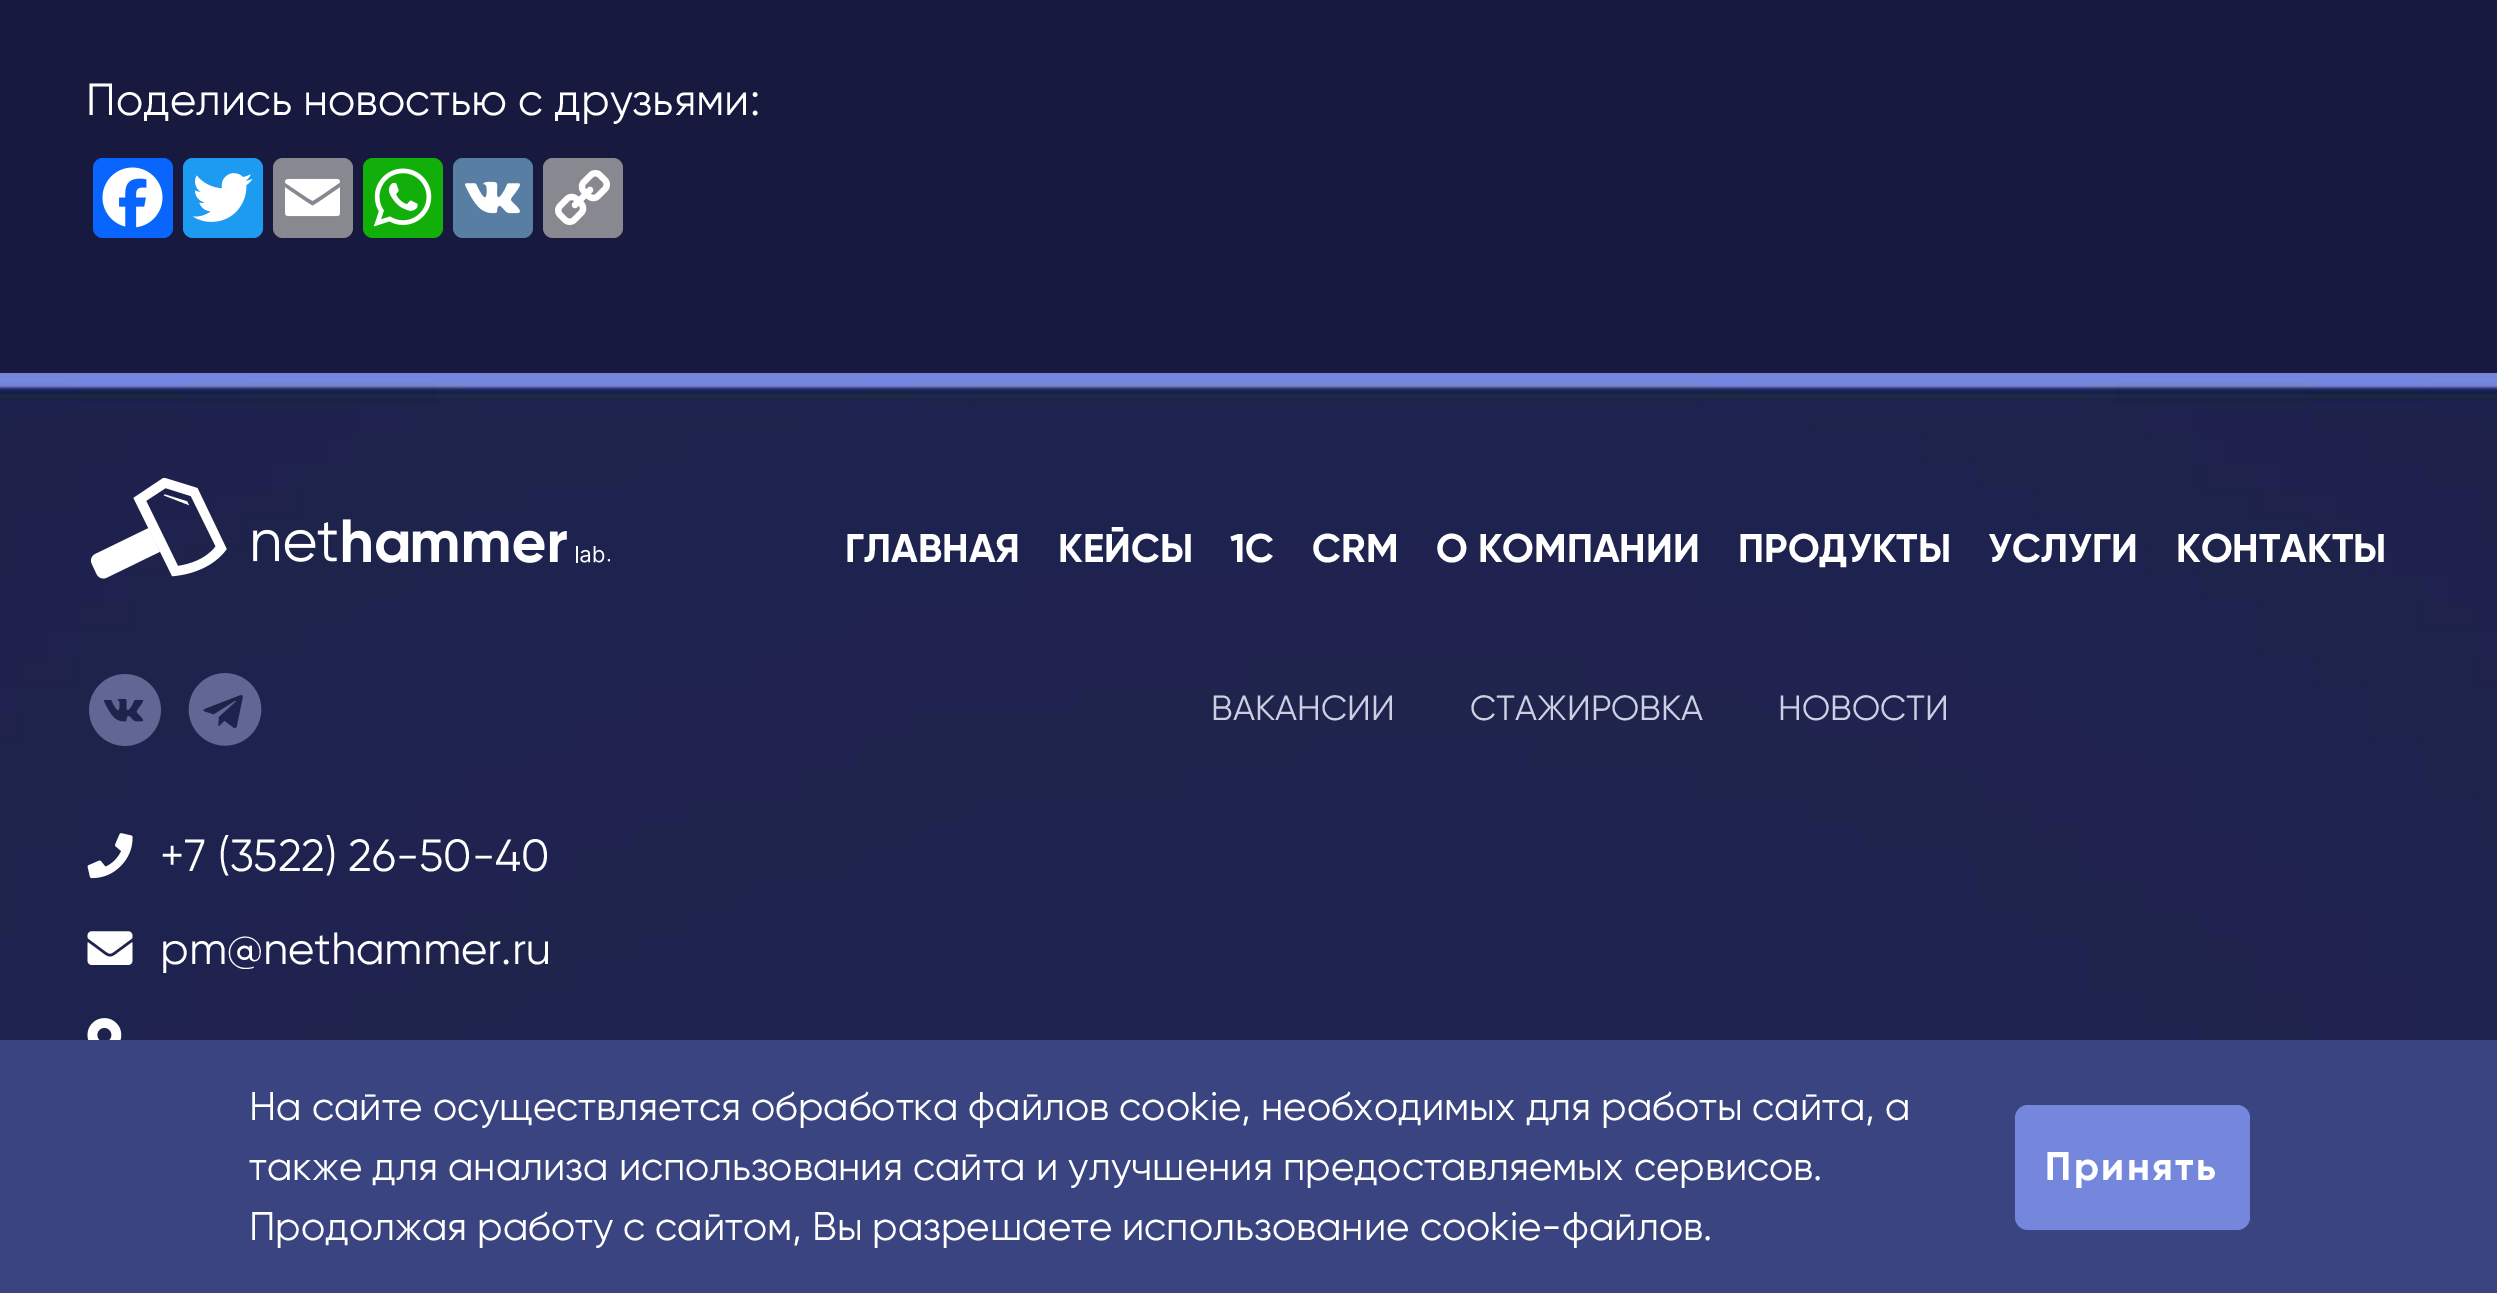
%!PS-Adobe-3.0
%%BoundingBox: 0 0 2497 1293
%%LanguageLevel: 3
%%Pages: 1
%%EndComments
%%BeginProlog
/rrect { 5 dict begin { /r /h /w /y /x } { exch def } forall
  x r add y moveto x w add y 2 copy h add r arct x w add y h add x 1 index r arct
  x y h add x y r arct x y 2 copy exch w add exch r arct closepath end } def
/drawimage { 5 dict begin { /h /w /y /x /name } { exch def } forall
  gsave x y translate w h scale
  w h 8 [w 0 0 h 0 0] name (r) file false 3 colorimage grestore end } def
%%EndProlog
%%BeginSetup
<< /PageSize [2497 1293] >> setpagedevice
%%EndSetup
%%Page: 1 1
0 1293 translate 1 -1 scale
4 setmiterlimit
0.09 0.098 0.247 setrgbcolor
0 0 2497 1293 rectfill
0.031 0.4 1 setrgbcolor
93 158 80 80 10 rrect fill
(images/1.raw) 102 167 61 61 drawimage
0.114 0.608 0.941 setrgbcolor
183 158 80 80 10 rrect fill
(images/2.raw) 192 173 61 49 drawimage
0.533 0.537 0.565 setrgbcolor
273 158 80 80 10 rrect fill
(images/3.raw) 285 178 55 39 drawimage
0.071 0.686 0.039 setrgbcolor
363 158 80 80 10 rrect fill
(images/4.raw) 373 168 59 59 drawimage
0.345 0.494 0.639 setrgbcolor
453 158 80 80 10 rrect fill
(images/5.raw) 465 181 55 33 drawimage
0.533 0.537 0.565 setrgbcolor
543 158 80 80 10 rrect fill
(images/6.raw) 555 170 55 55 drawimage
(images/7.raw) 0 378 2497 662 drawimage
0.455 0.529 0.867 setrgbcolor
0 373 2497 5 rectfill
(images/8.raw) 90 478 520 101 drawimage
(images/9.raw) 89 674 72 72 drawimage
(images/10.raw) 188 673 74 73 drawimage
(images/11.raw) 87 833 46 46 drawimage
(images/12.raw) 87 931 46 34 drawimage
(images/13.raw) 87 1018 35 22 drawimage
0.227 0.267 0.502 setrgbcolor
0 1040 2497 253 rectfill
0.455 0.529 0.867 setrgbcolor
2015 1105 235 125 13 rrect fill
/Gilroy-Regular [45 0 0 -45 0 0] selectfont
1 setgray
86 115 moveto (Поделись новостью с друзьями:) show
/Gilroy-Bold [40 0 0 -40 0 0] selectfont
1058 562 moveto (КЕЙСЫ) show
1436 562 moveto (О КОМПАНИИ) show
/Gilroy-Regular [35 0 0 -35 0 0] selectfont
0.812 0.812 0.894 setrgbcolor
1211 720 moveto (ВАКАНСИИ) show
1470 720 moveto (СТАЖИРОВКА) show
1778 720 moveto (НОВОСТИ) show
/Gilroy-Bold [40 0 0 -40 0 0] selectfont
1 setgray
845 562 moveto (ГЛАВНАЯ) show
1230 562 moveto (1C) show
1312 562 moveto (CRM) show
1738 562 moveto (ПРОДУКТЫ) show
1988 562 moveto (УСЛУГИ) show
2176 562 moveto (КОНТАКТЫ) show
/Gilroy-Regular [45 0 0 -45 0 0] selectfont
160 871 moveto (+7 \(3522\) 26-50-40) show
160 964 moveto (pm@nethammer.ru) show
/Gilroy-Regular [40 0 0 -40 0 0] selectfont
249 1120 moveto (На сайте осуществляется обработка файлов cookie, необходимых для работы сайта, а) show
249 1180 moveto (также для анализа использования сайта и улучшения предоставляемых сервисов.) show
249 1240 moveto (Продолжая работу с сайтом, Вы разрешаете использование cookie-файлов.) show
/Gilroy-Bold [40 0 0 -40 0 0] selectfont
2045 1180 moveto 2.5 0 (Принять) ashow
showpage
%%EOF
